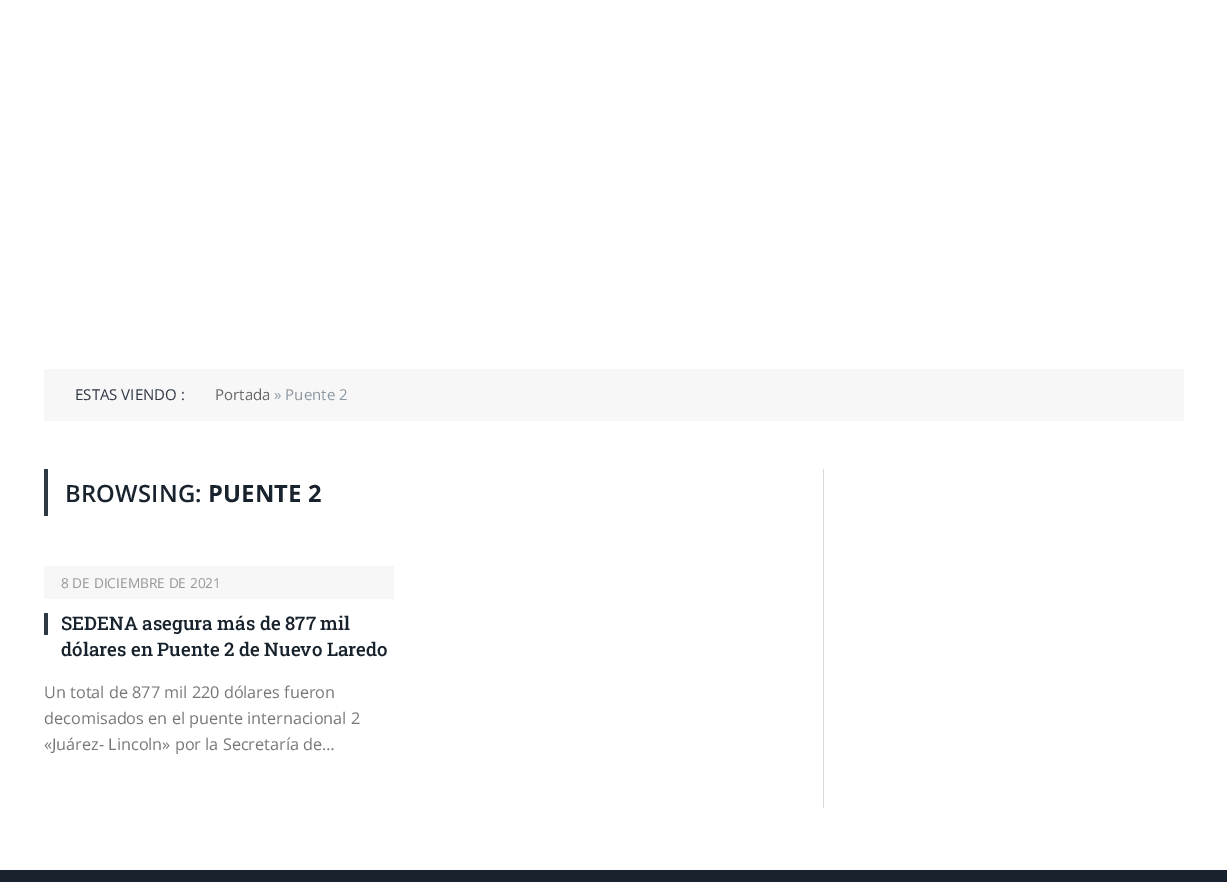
%!PS-Adobe-3.0
%%BoundingBox: 0 0 1227 882
%%LanguageLevel: 3
%%Pages: 1
%%EndComments
%%BeginProlog
%%EndProlog
%%BeginSetup
<< /PageSize [1227 882] >> setpagedevice
%%EndSetup
%%Page: 1 1
0 882 translate 1 -1 scale
4 setmiterlimit
1 setgray
0 0 1227 882 rectfill
0.969 setgray
44 369 1140 52 rectfill
0.188 0.216 0.271 setrgbcolor
44 469 4 47 rectfill
0.969 setgray
44 566 350 33 rectfill
0.188 0.216 0.271 setrgbcolor
44 613 4 22 rectfill
0.851 setgray
823 469 1 339 rectfill
0.098 0.137 0.176 setrgbcolor
0 870 1227 12 rectfill
/OpenSans-Regular [15 0 0 -15 0 0] selectfont
0.188 0.216 0.271 setrgbcolor
75 400 moveto (ESTAS VIENDO :) show
0.4 setgray
215 400 moveto (Portada) show
0.553 0.592 0.631 setrgbcolor
274 400 moveto (» Puente 2) show
/OpenSans-SemiBold [23.75 0 0 -23.75 0 0] selectfont
0.098 0.137 0.176 setrgbcolor
65 502 moveto 0.25 0 (BROWSING:) ashow
/OpenSans-Bold [23.75 0 0 -23.75 0 0] selectfont
208 502 moveto 0.25 0 (PUENTE 2) ashow
/OpenSans-Regular [13.75 0 0 -13.75 0 0] selectfont
0.6 setgray
61 588 moveto (8 DE DICIEMBRE DE 2021) show
/RobotoSlab-Medium [18.75 0 0 -18.75 0 0] selectfont
0.098 0.137 0.176 setrgbcolor
61 630 moveto (SEDENA asegura más de 877 mil) show
61 656 moveto (dólares en Puente 2 de Nuevo Laredo) show
/OpenSans-Regular [16.25 0 0 -16.25 0 0] selectfont
0.467 setgray
44 698 moveto (Un total de 877 mil 220 dólares fueron) show
44 724 moveto (decomisados en el puente internacional 2) show
44 750 moveto («Juárez- Lincoln» por la Secretaría de…) show
showpage
%%EOF
